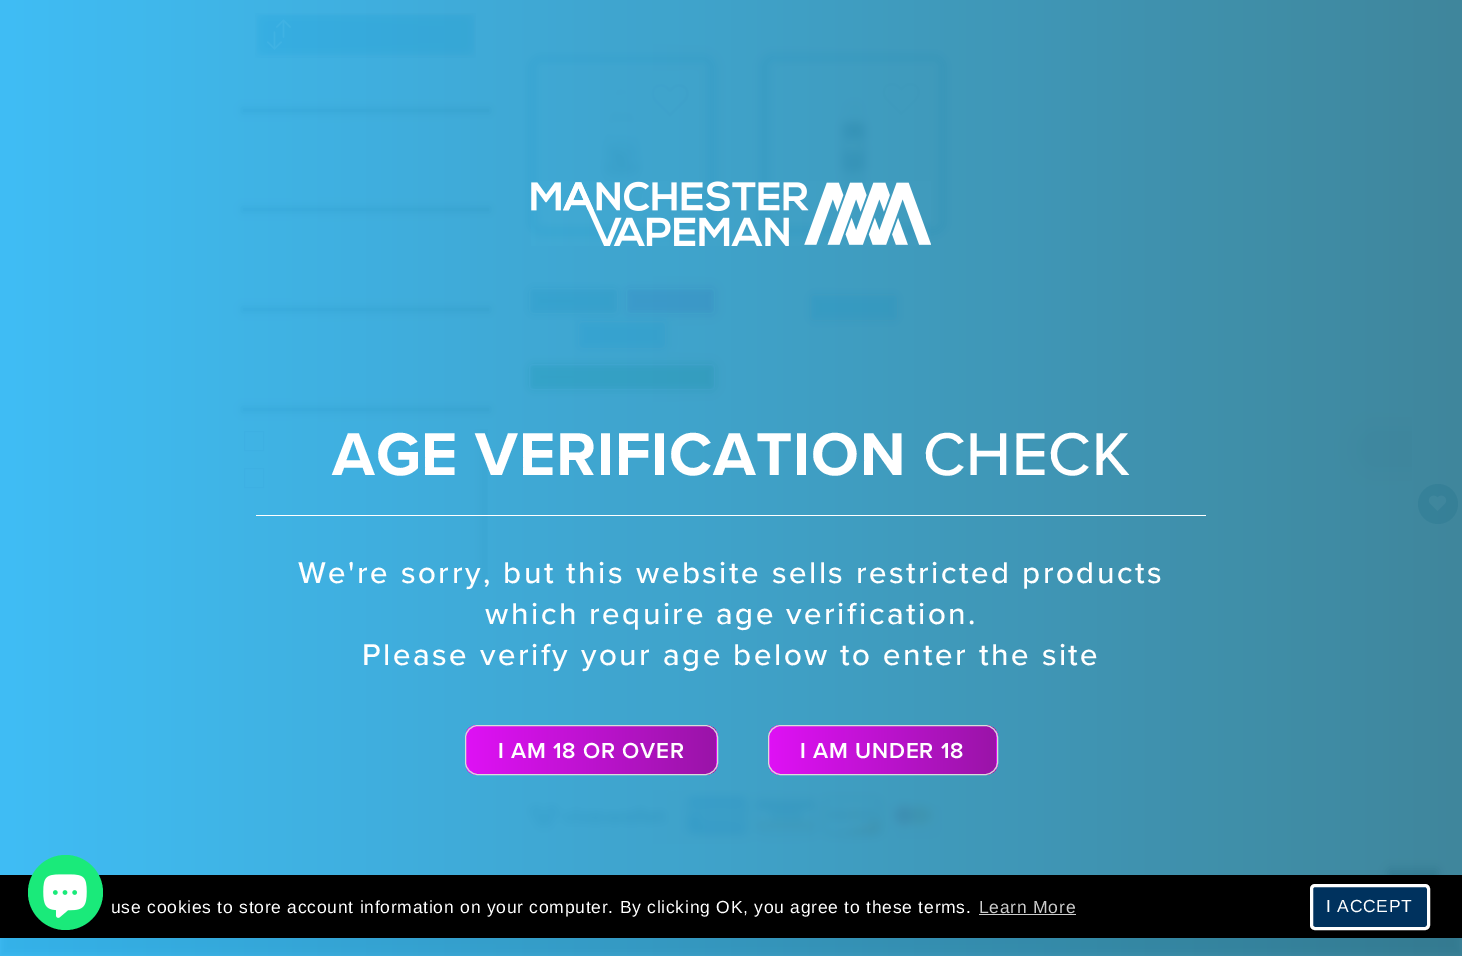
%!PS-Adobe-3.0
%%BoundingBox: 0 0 1462 956
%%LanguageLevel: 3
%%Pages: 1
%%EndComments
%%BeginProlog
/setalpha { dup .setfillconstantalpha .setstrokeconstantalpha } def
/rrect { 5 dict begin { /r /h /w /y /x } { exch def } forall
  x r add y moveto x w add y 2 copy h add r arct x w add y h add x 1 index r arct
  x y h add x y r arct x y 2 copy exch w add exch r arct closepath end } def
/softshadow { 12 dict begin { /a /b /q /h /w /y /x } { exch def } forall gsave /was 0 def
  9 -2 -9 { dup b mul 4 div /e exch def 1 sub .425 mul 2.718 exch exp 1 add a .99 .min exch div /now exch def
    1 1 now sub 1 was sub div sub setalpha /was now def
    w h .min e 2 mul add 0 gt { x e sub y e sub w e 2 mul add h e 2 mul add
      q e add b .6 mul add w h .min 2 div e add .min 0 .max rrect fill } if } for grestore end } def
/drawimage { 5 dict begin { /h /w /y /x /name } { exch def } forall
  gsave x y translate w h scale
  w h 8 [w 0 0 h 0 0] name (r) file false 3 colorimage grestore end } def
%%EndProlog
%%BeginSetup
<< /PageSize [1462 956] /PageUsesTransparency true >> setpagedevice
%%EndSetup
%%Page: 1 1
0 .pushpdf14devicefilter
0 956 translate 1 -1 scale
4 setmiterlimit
1 setgray
0 0 1462 956 rectfill
(images/1.raw) 255 13 221 45 drawimage
0.071 0.071 0.031 setrgbcolor
244 110 244 1 0 5 1 softshadow
244 209 244 1 0 5 1 softshadow
244 309 244 1 0 5 1 softshadow
244 409 244 1 0 5 1 softshadow
0.8 setgray
244.5 431.5 19 19 rectstroke
244.5 468.5 19 19 rectstroke
gsave
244 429 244 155 rectclip
0.867 0.867 0.933 setrgbcolor
481 429 7 155 0 5 1 softshadow
0.655 setgray
481 429 7 155 0 5 1 softshadow
grestore
0.212 0.616 0.776 setrgbcolor
529 56 186 178 11 5 1 softshadow
1 setgray
535 61 174 168 6 5 1 softshadow
(images/2.raw) 544 66 155 156 drawimage
(images/3.raw) 651 84 38 33 drawimage
0.212 0.502 0.592 setrgbcolor
529 288 89 26 4 5 1 softshadow
0.855 setgray
529.5 288.5 88 25 3.5 rrect stroke
0.604 0.078 0.659 setrgbcolor
626 288 89 26 4 5 1 softshadow
0.855 setgray
626.5 288.5 88 25 3.5 rrect stroke
0 0.502 0 setrgbcolor
529 364 186 26 4 5 1 softshadow
0.855 setgray
529.5 364.5 185 25 3.5 rrect stroke
0.212 0.729 0.957 setrgbcolor
578 321 88 28 4 5 1 softshadow
0.855 setgray
578.5 321.5 87 27 3.5 rrect stroke
0.212 0.616 0.776 setrgbcolor
761 55 185 179 11 5 1 softshadow
1 setgray
768 60 172 168 6 5 1 softshadow
(images/4.raw) 776 66 155 156 drawimage
(images/5.raw) 882 82 38 33 drawimage
0.212 0.729 0.957 setrgbcolor
810 294 88 27 4 5 1 softshadow
0.855 setgray
810.5 294.5 87 26 3.5 rrect stroke
(images/6.raw) 518 790 429 54 drawimage
0 setgray
0 885 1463 71 0 5 1 softshadow
1388 869 50 50 2.5 5 1 softshadow
0.067 0.133 0.2 setrgbcolor
1354 424 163 50 28 9 0.16 softshadow
1 setgray
newpath 1412 501 moveto 1412 388 lineto 1412 373 1425 361 1440 361 curveto 1462 361 lineto 1462 528 lineto 1440 528 lineto 1425 528 1412 516 1412 501 curveto closepath fill
0.212 0.502 0.592 setrgbcolor
newpath 1438 504 20 0 360 arc closepath fill
(images/8.raw) 1428 495 19 16 drawimage
0.95 setalpha
gsave newpath 0 0 moveto 1462 0 lineto 1462 956 lineto 0 956 lineto closepath clip newpath
<< /ShadingType 2 /ColorSpace /DeviceRGB /Coords [0 478 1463 478] /Extend [true true] /Function << /FunctionType 2 /Domain [0 1] /C0 [0.212 0.729 0.957] /C1 [0.212 0.502 0.592] /N 1 >> >> shfill grestore
1 setalpha
(images/7.raw) 531 181 400 65 drawimage
1 setgray
256 515 950 1 rectfill
gsave
465 725 253 50 13 rrect clip newpath
gsave newpath 466 725 moveto 716 725 lineto 716 775 lineto 466 775 lineto closepath clip newpath
<< /ShadingType 2 /ColorSpace /DeviceRGB /Coords [466 750 716 750] /Extend [true true] /Function << /FunctionType 2 /Domain [0 1] /C0 [0.875 0.067 0.961] /C1 [0.604 0.078 0.659] /N 1 >> >> shfill grestore
gsave newpath 716 725 moveto 718 725 lineto 718 775 lineto 716 775 lineto closepath clip newpath
<< /ShadingType 2 /ColorSpace /DeviceRGB /Coords [716 750 966 750] /Extend [true true] /Function << /FunctionType 2 /Domain [0 1] /C0 [0.875 0.067 0.961] /C1 [0.604 0.078 0.659] /N 1 >> >> shfill grestore
grestore
0.855 setgray
465.5 725.5 252 49 12.5 rrect stroke
gsave
768 725 230 50 13 rrect clip newpath
gsave newpath 769 725 moveto 996 725 lineto 996 775 lineto 769 775 lineto closepath clip newpath
<< /ShadingType 2 /ColorSpace /DeviceRGB /Coords [769 750 996 750] /Extend [true true] /Function << /FunctionType 2 /Domain [0 1] /C0 [0.875 0.067 0.961] /C1 [0.604 0.078 0.659] /N 1 >> >> shfill grestore
gsave newpath 996 725 moveto 998 725 lineto 998 775 lineto 996 775 lineto closepath clip newpath
<< /ShadingType 2 /ColorSpace /DeviceRGB /Coords [996 750 1224 750] /Extend [true true] /Function << /FunctionType 2 /Domain [0 1] /C0 [0.875 0.067 0.961] /C1 [0.604 0.078 0.659] /N 1 >> >> shfill grestore
grestore
768.5 725.5 229 49 12.5 rrect stroke
0 setgray
0 875 1462 63 rectfill
0.102 0.918 0.478 setrgbcolor
newpath 65.5 892.5 37.5 0 360 arc closepath fill
(images/9.raw) 43 874 44 44 drawimage
0.8 setgray
979 914 97 1 rectfill
0 0.196 0.369 setrgbcolor
1311.5 885.5 117 43 3.5 rrect gsave fill grestore
1 setgray
3 setlinewidth
stroke
/ProximaNova-Bold [62.5 0 0 -62.5 0 0] selectfont
332 475 moveto 0.76 0 (AGE VERIFICATION) ashow
/ProximaNova-Medium [62.5 0 0 -62.5 0 0] selectfont
923 475 moveto 0.76 0 (CHECK) ashow
/ProximaNova-Medium [31.25 0 0 -31.25 0 0] selectfont
298 583 moveto 2.5 0 (We're sorry, but this website sells restricted products) ashow
485 624 moveto 2.5 0 (which require age verification.) ashow
362 665 moveto 2.5 0 (Please verify your age below to enter the site) ashow
/ProximaNova-SemiBold [22.5 0 0 -22.5 0 0] selectfont
498 758 moveto 0.76 0 (I AM 18 OR OVER) ashow
800 758 moveto 0.76 0 (I AM UNDER 18) ashow
/LiberationSans-Regular [17.5 0 0 -17.5 0 0] selectfont
111 913 moveto 0.76 0 (use cookies to store account information on your computer. By clicking OK, you agree to these terms.) ashow
0.8 setgray
979 913 moveto 0.76 0 (Learn More) ashow
1 setgray
1326 912 moveto 0.76 0 (I ACCEPT) ashow
.poppdf14devicefilter showpage
%%EOF
